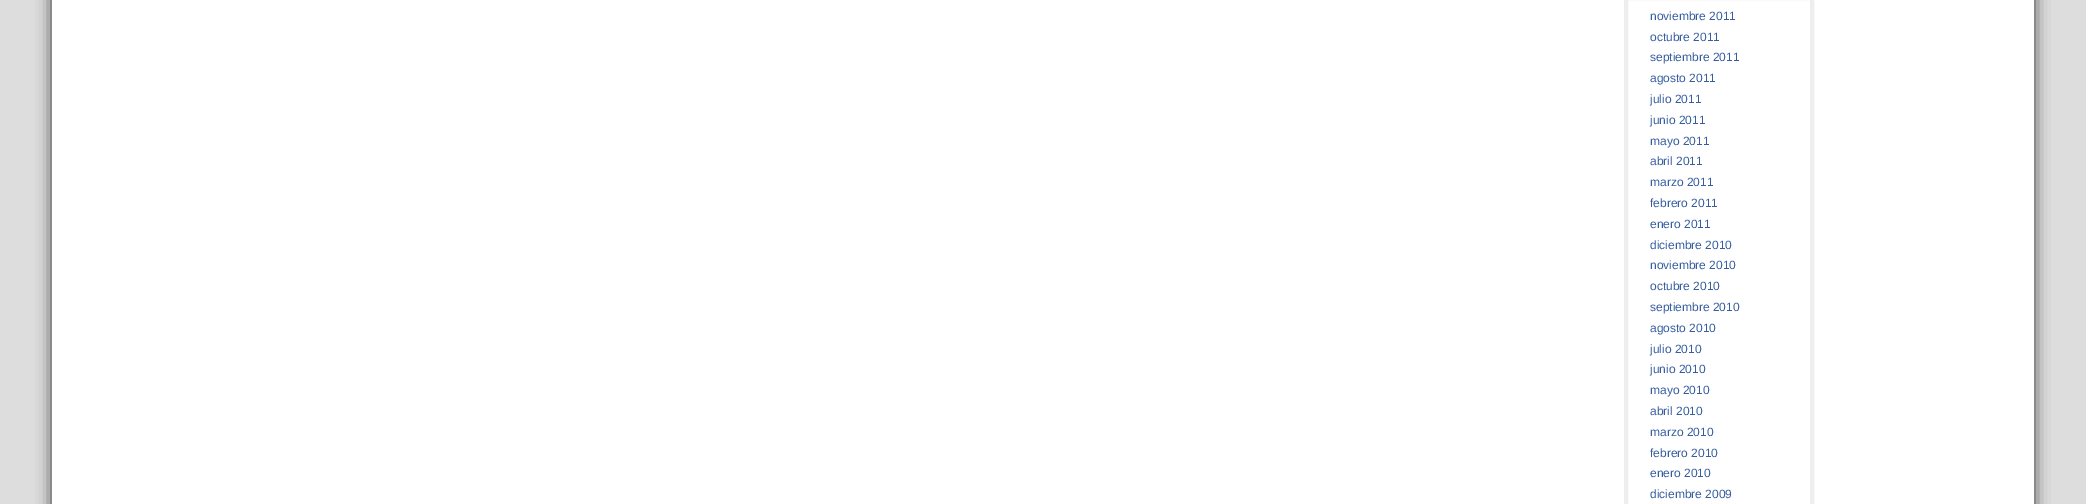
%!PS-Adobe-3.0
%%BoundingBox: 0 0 2086 504
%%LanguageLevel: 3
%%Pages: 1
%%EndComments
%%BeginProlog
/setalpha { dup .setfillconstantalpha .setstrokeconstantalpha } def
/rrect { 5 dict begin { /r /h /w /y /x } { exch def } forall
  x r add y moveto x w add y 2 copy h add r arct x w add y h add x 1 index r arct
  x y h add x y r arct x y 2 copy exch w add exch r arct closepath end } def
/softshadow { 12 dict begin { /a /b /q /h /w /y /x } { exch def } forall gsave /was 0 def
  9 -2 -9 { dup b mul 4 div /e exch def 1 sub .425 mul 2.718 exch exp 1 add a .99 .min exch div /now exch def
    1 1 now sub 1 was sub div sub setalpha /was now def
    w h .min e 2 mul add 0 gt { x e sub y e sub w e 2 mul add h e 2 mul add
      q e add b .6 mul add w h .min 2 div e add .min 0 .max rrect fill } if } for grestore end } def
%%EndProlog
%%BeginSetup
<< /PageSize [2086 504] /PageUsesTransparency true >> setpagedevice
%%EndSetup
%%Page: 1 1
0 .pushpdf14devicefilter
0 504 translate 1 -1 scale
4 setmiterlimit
0.867 setgray
0 0 2086 504 rectfill
0.2 setgray
52 -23 1982 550 0 7.5 1 softshadow
1 setgray
52 0 1982 504 rectfill
0.933 setgray
4 setlinewidth
1626 -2 186 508 rectstroke
/LiberationSans-Regular [12 0 0 -12 0 0] selectfont
0.212 0.365 0.627 setrgbcolor
1650 20 moveto (noviembre 2011) show
1650 41 moveto (octubre 2011) show
1650 61 moveto (septiembre 2011) show
1650 82 moveto (agosto 2011) show
1650 103 moveto (julio 2011) show
1650 124 moveto (junio 2011) show
1650 145 moveto (mayo 2011) show
1650 165 moveto (abril 2011) show
1650 186 moveto (marzo 2011) show
1650 207 moveto (febrero 2011) show
1650 228 moveto (enero 2011) show
1650 249 moveto (diciembre 2010) show
1650 269 moveto (noviembre 2010) show
1650 290 moveto (octubre 2010) show
1650 311 moveto (septiembre 2010) show
1650 332 moveto (agosto 2010) show
1650 353 moveto (julio 2010) show
1650 373 moveto (junio 2010) show
1650 394 moveto (mayo 2010) show
1650 415 moveto (abril 2010) show
1650 436 moveto (marzo 2010) show
1650 457 moveto (febrero 2010) show
1650 477 moveto (enero 2010) show
1650 498 moveto (diciembre 2009) show
.poppdf14devicefilter showpage
%%EOF
